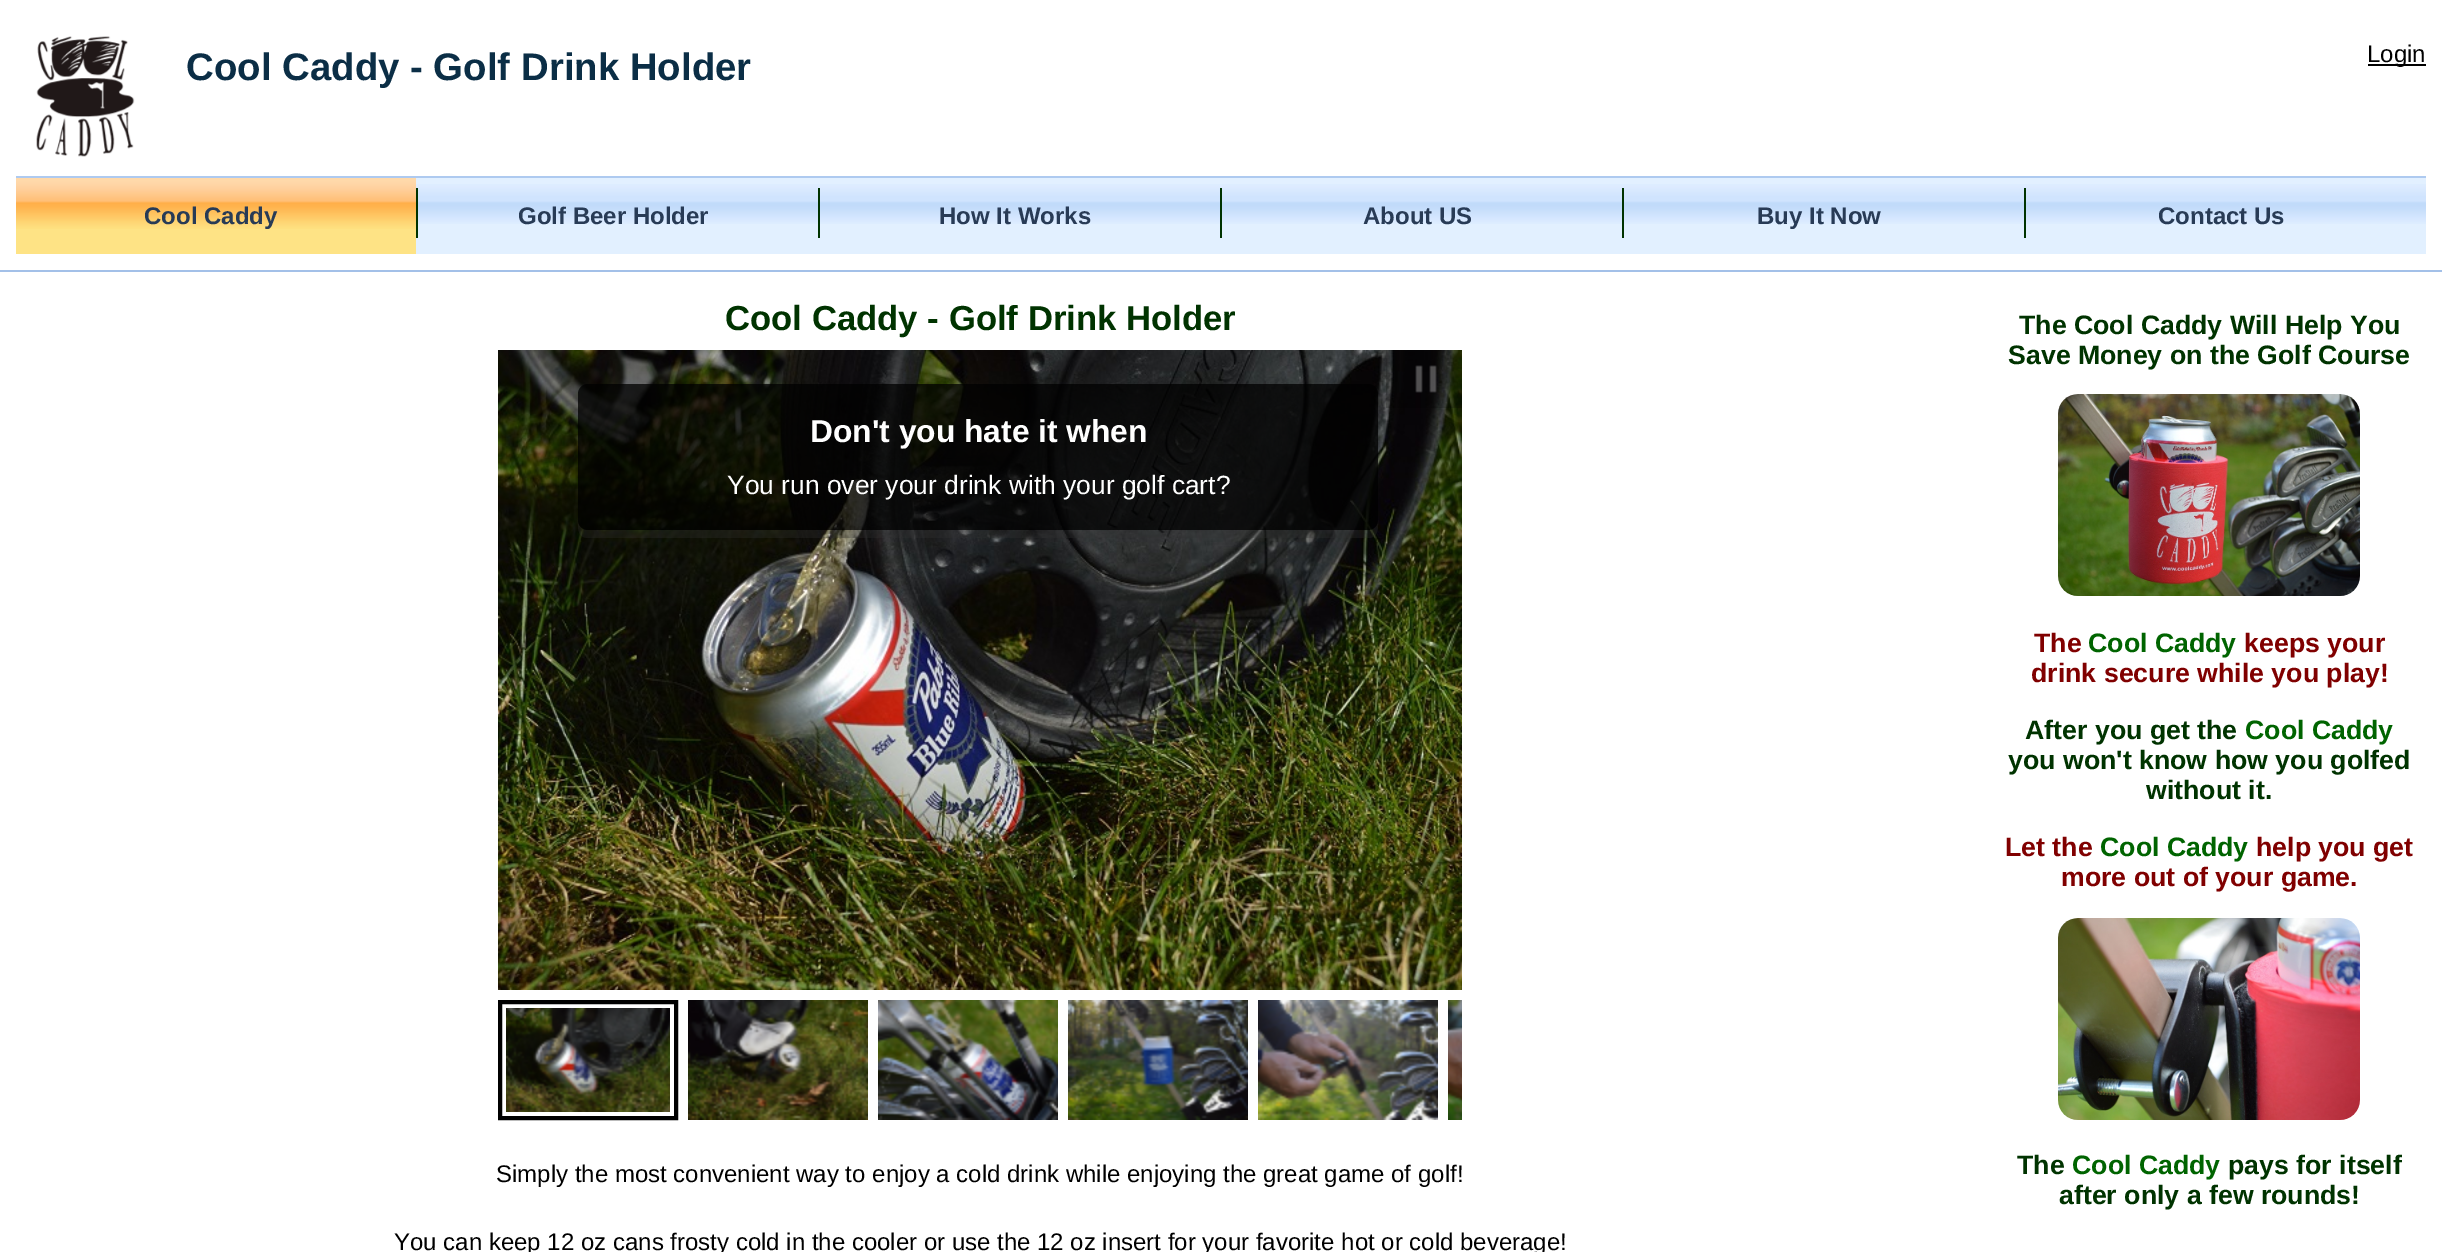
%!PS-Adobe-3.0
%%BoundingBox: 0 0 2442 1252
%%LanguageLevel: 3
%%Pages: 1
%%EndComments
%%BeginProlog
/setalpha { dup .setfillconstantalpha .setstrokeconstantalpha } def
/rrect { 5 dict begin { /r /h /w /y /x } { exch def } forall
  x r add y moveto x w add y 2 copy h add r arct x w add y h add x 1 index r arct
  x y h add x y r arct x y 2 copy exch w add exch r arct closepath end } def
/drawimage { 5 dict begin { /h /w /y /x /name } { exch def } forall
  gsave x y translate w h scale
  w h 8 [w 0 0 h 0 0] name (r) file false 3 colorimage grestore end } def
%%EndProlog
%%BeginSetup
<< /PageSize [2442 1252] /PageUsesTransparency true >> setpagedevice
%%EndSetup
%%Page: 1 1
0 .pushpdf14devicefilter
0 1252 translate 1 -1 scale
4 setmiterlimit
1 setgray
0 0 2442 1252 rectfill
0.639 0.753 0.91 setrgbcolor
0 270 2442 2 rectfill
(images/1.raw) 36 36 99 121 drawimage
0 setgray
2368 64 58 2 rectfill
0.886 0.941 1 setrgbcolor
416 178 2010 76 rectfill
(images/2.raw) 416 184 2010 40 drawimage
0.682 0.792 0.941 setrgbcolor
16 176 2410 2 rectfill
0.996 0.89 0.522 setrgbcolor
16 229 400 25 rectfill
(images/3.raw) 16 178 400 51 drawimage
0 0.2 0 setrgbcolor
416 188 2 50 rectfill
818 188 2 50 rectfill
1220 188 2 50 rectfill
1622 188 2 50 rectfill
2024 188 2 50 rectfill
(images/5.raw) 498 350 964 640 drawimage
0.22 setalpha
0 setgray
1386 350 76 58 rectfill
1 setalpha
(images/4.raw) 1415 365 22 28 drawimage
0.3 setalpha
0.196 setgray
newpath 578 520 moveto 578 527 577 538 588 538 curveto 1368 538 lineto 1379 538 1378 527 1378 520 curveto 1378 526 1374 530 1368 530 curveto 588 530 lineto 582 530 578 526 578 520 curveto closepath fill
0.75 setalpha
0 setgray
578 384 800 146 10 rrect fill
1 setalpha
(images/11.raw) 506 1008 164 104 drawimage
4 setlinewidth
500 1002 176 116 rectstroke
(images/6.raw) 688 1000 180 120 drawimage
(images/7.raw) 878 1000 180 120 drawimage
(images/8.raw) 1068 1000 180 120 drawimage
(images/9.raw) 1258 1000 180 120 drawimage
(images/10.raw) 1448 1000 14 120 drawimage
(images/12.raw) 2058 394 302 202 drawimage
(images/13.raw) 2058 918 302 202 drawimage
/LiberationSans-Bold [38.4 0 0 -38.4 0 0] selectfont
0.043 0.18 0.275 setrgbcolor
186 80 moveto (Cool Caddy - Golf Drink Holder) show
/LiberationSans-Regular [24 0 0 -24 0 0] selectfont
0 setgray
2367 62 moveto (Login) show
/LiberationSans-Bold [24 0 0 -24 0 0] selectfont
0.157 0.231 0.337 setrgbcolor
144 224 moveto (Cool Caddy) show
518 224 moveto (Golf Beer Holder) show
939 224 moveto (How It Works) show
1363 224 moveto (About US) show
1757 224 moveto (Buy It Now) show
2158 224 moveto (Contact Us) show
/LiberationSans-Bold [34.7 0 0 -34.7 0 0] selectfont
0 0.2 0 setrgbcolor
725 330 moveto (Cool Caddy - Golf Drink Holder) show
/LiberationSans-Bold [31.75 0 0 -31.75 0 0] selectfont
1 setgray
810 442 moveto (Don't you hate it when) show
/LiberationSans-Regular [26.4 0 0 -26.4 0 0] selectfont
727 494 moveto (You run over your drink with your golf cart?) show
/LiberationSans-Regular [24 0 0 -24 0 0] selectfont
0 setgray
496 1182 moveto (Simply the most convenient way to enjoy a cold drink while enjoying the great game of golf!) show
394 1250 moveto (You can keep 12 oz cans frosty cold in the cooler or use the 12 oz insert for your favorite hot or cold beverage!) show
/LiberationSans-Bold [26.7 0 0 -26.7 0 0] selectfont
0 0.2 0 setrgbcolor
2019 334 moveto (The Cool Caddy Will Help You) show
2008 364 moveto (Save Money on the Golf Course) show
0.502 0 0 setrgbcolor
2034 652 moveto (The) show
0 0.392 0 setrgbcolor
2088 652 moveto (Cool Caddy) show
0.502 0 0 setrgbcolor
2244 652 moveto (keeps your) show
2031 682 moveto (drink secure while you play!) show
0 0.2 0 setrgbcolor
2025 739 moveto (After you get the) show
0 0.392 0 setrgbcolor
2245 739 moveto (Cool Caddy) show
0 0.2 0 setrgbcolor
2008 769 moveto (you won't know how you golfed) show
2146 799 moveto (without it.) show
0.502 0 0 setrgbcolor
2005 856 moveto (Let the) show
0 0.392 0 setrgbcolor
2100 856 moveto (Cool Caddy) show
0.502 0 0 setrgbcolor
2256 856 moveto (help you get) show
2061 886 moveto (more out of your game.) show
0 0.2 0 setrgbcolor
2017 1174 moveto (The) show
0 0.392 0 setrgbcolor
2072 1174 moveto (Cool Caddy) show
0 0.2 0 setrgbcolor
2228 1174 moveto (pays for itself) show
2059 1204 moveto (after only a few rounds!) show
.poppdf14devicefilter showpage
%%EOF
